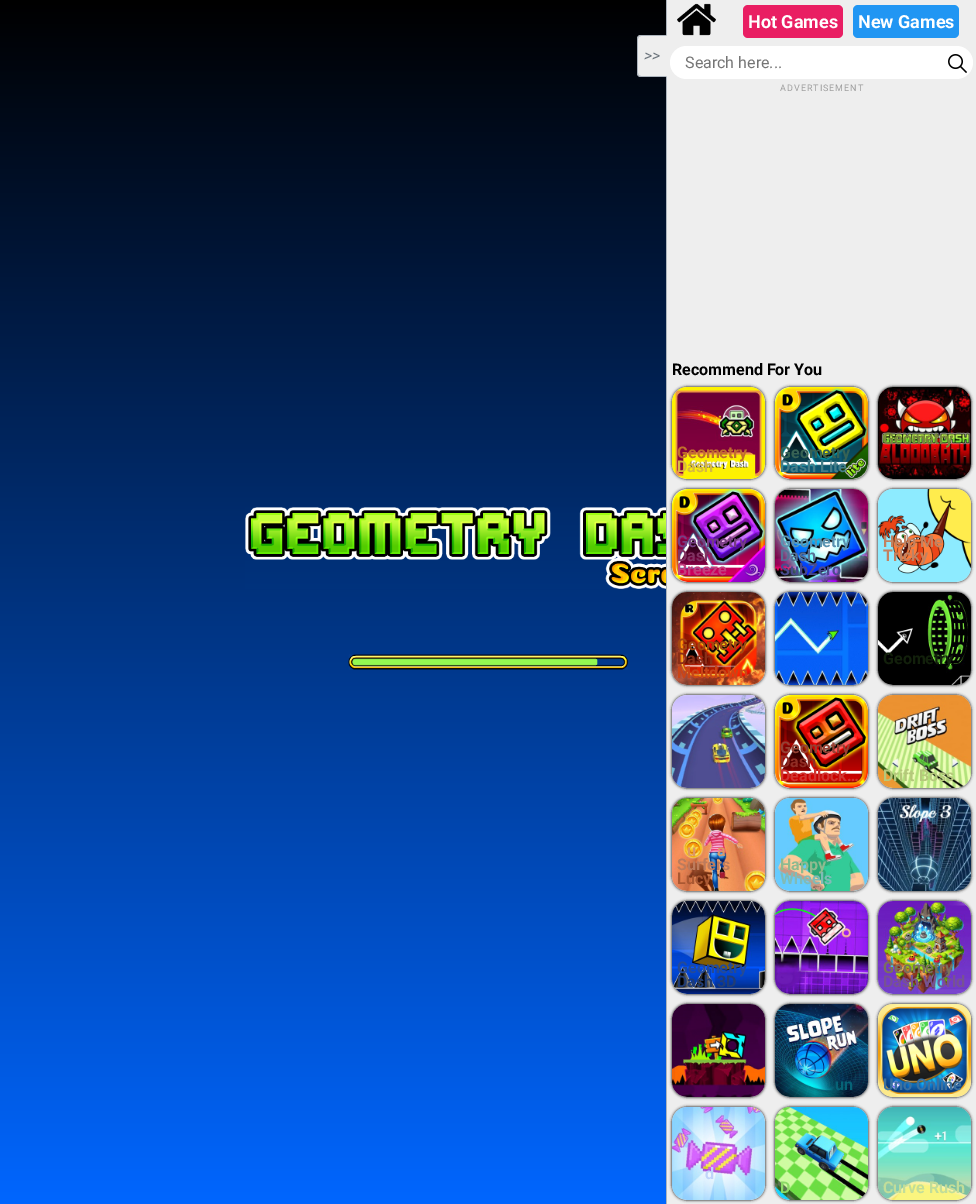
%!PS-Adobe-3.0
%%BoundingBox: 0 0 976 1204
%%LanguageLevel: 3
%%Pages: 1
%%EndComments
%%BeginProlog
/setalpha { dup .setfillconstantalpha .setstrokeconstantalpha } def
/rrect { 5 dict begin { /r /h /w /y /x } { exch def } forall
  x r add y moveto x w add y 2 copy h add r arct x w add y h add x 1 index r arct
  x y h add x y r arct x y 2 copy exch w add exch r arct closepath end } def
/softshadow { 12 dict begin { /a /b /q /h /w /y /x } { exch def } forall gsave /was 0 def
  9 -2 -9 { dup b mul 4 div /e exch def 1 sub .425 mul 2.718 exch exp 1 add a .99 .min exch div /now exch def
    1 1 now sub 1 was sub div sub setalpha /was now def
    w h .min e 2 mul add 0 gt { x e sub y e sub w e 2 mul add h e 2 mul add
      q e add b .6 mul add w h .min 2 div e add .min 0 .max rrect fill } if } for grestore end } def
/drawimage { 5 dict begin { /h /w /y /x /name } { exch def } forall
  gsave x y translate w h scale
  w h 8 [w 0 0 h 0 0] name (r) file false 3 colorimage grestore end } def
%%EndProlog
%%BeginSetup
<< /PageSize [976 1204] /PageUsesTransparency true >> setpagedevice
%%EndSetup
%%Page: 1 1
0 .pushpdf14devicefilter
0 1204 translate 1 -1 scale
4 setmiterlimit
1 setgray
0 0 976 1204 rectfill
gsave newpath 0 0 moveto 666 0 lineto 666 1204 lineto 0 1204 lineto closepath clip newpath
<< /ShadingType 2 /ColorSpace /DeviceRGB /Coords [488 0 488 1204] /Extend [true true] /Function << /FunctionType 2 /Domain [0 1] /C0 [0 0 0] /C1 [0 0.4 1] /N 1 >> >> shfill grestore
(images/1.raw) 245 507 421 82 drawimage
(images/3.raw) 351 658 247 8 drawimage
(images/2.raw) 348 654 280 16 drawimage
0.678 0.71 0.741 setrgbcolor
666 0 1 1204 rectfill
0.933 setgray
newpath 641 35 moveto 667 35 lineto 667 77 lineto 641 77 lineto 639 77 637 75 637 73 curveto 637 39 lineto 637 37 639 35 641 35 curveto closepath fill
0.678 0.71 0.741 setrgbcolor
newpath 641 35 moveto 640 35 639 35.5 638 36 curveto 639 37 lineto 639 36 640 36 641 36 curveto 666 36 lineto 667 35 lineto closepath 667 77 moveto 666 76 lineto 641 76 lineto 640 76 639 76 639 75 curveto 638 76 lineto 639 76.5 640 77 641 77 curveto closepath fill
newpath 637 39 moveto 637 73 lineto 637 74 637.5 75 638 76 curveto 639 75 lineto 638 75 638 74 638 73 curveto 638 39 lineto 638 38 638 37 639 37 curveto 638 36 lineto 637.5 37 637 38 637 39 curveto closepath fill
0.933 setgray
667 0 309 1204 rectfill
(images/4.raw) 677 3 39 33 drawimage
0.914 0.118 0.388 setrgbcolor
743 5 100 33 5 rrect fill
0.129 0.588 0.953 setrgbcolor
853 5 106 33 5 rrect fill
1 setgray
670 46 303 33 16.5 rrect fill
(images/5.raw) 948 54 19 19 drawimage
0.008 setgray
878 387 93 92 15 1.5 1 softshadow
(images/6.raw) 878 387 93 92 drawimage
672 387 93 92 15 1.5 1 softshadow
(images/7.raw) 672 387 93 92 drawimage
775 387 93 92 15 1.5 1 softshadow
(images/8.raw) 775 387 93 92 drawimage
672 489 93 93 15 1.5 1 softshadow
(images/9.raw) 672 489 93 93 drawimage
775 489 93 93 15 1.5 1 softshadow
(images/10.raw) 775 489 93 93 drawimage
878 489 93 93 15 1.5 1 softshadow
(images/11.raw) 878 489 93 93 drawimage
672 592 93 93 15 1.5 1 softshadow
(images/12.raw) 672 592 93 93 drawimage
775 592 93 93 15 1.5 1 softshadow
(images/13.raw) 775 592 93 93 drawimage
878 592 93 93 15 1.5 1 softshadow
(images/14.raw) 878 592 93 93 drawimage
672 695 93 93 15 1.5 1 softshadow
(images/15.raw) 672 695 93 93 drawimage
775 695 93 93 15 1.5 1 softshadow
(images/16.raw) 775 695 93 93 drawimage
878 695 93 93 15 1.5 1 softshadow
(images/17.raw) 878 695 93 93 drawimage
672 798 93 93 15 1.5 1 softshadow
(images/18.raw) 672 798 93 93 drawimage
775 798 93 93 15 1.5 1 softshadow
(images/19.raw) 775 798 93 93 drawimage
878 798 93 93 15 1.5 1 softshadow
(images/20.raw) 878 798 93 93 drawimage
672 901 93 93 15 1.5 1 softshadow
(images/21.raw) 672 901 93 93 drawimage
775 901 93 93 15 1.5 1 softshadow
(images/22.raw) 775 901 93 93 drawimage
878 901 93 93 15 1.5 1 softshadow
(images/23.raw) 878 901 93 93 drawimage
672 1004 93 93 15 1.5 1 softshadow
(images/24.raw) 672 1004 93 93 drawimage
775 1004 93 93 15 1.5 1 softshadow
(images/25.raw) 775 1004 93 93 drawimage
878 1004 93 93 15 1.5 1 softshadow
(images/26.raw) 878 1004 93 93 drawimage
672 1107 93 93 15 1.5 1 softshadow
(images/27.raw) 672 1107 93 93 drawimage
775 1107 93 93 15 1.5 1 softshadow
(images/28.raw) 775 1107 93 93 drawimage
878 1107 93 93 15 1.5 1 softshadow
(images/29.raw) 878 1107 93 93 drawimage
/Roboto-Italic [16 0 0 -16 0 0] selectfont
0.424 0.459 0.49 setrgbcolor
644 61 moveto (>>) show
/Roboto-Bold [18 0 0 -18 0 0] selectfont
1 setgray
748 28 moveto (Hot Games) show
858 28 moveto (New Games) show
/Roboto-Regular [16 0 0 -16 0 0] selectfont
0.459 setgray
685 68 moveto (Search here...) show
/Roboto-Regular [9 0 0 -9 0 0] selectfont
0.62 setgray
780 91 moveto 1 0 (ADVERTISEMENT) ashow
/Roboto-Bold [16 0 0 -16 0 0] selectfont
0 setgray
672 375 moveto (Recommend For You) show
0.471 0.541 0.227 setrgbcolor
883 444 moveto (Geometry) show
0.753 0.435 0.169 setrgbcolor
677 458 moveto (Geometry) show
0.839 0.722 0.255 setrgbcolor
677 472 moveto (Dash) show
0.216 0.384 0.329 setrgbcolor
780 458 moveto (Geometry) show
0.267 0.49 0.533 setrgbcolor
780 472 moveto (Dash Lite) show
0.463 0.243 0.514 setrgbcolor
677 547 moveto (Geometry) show
0.506 0.196 0.384 setrgbcolor
677 561 moveto (Dash) show
0.769 0.243 0.494 setrgbcolor
677 575 moveto (Breeze) show
0.353 0.576 0.694 setrgbcolor
780 547 moveto (Geometry) show
0.337 0.439 0.584 setrgbcolor
780 561 moveto (Dash) show
0.286 0.29 0.557 setrgbcolor
780 575 moveto (SubZero) show
0.761 0.51 0.38 setrgbcolor
883 547 moveto (Help Me) show
883 561 moveto (Tricky) show
0.639 0.275 0.067 setrgbcolor
677 650 moveto (Geometry) show
0.545 0.18 0.09 setrgbcolor
677 664 moveto (Dash) show
0.792 0.271 0.09 setrgbcolor
677 678 moveto (Meltdown) show
0.071 0.125 0.043 setrgbcolor
883 664 moveto (Geometry) show
0.584 0.251 0.2 setrgbcolor
780 753 moveto (Geometry) show
0.561 0.176 0.141 setrgbcolor
780 767 moveto (Dash) show
0.82 0.204 0.188 setrgbcolor
780 781 moveto (Deadlock…) show
0.71 0.784 0.482 setrgbcolor
883 781 moveto (Drift Boss) show
0.867 0.592 0.396 setrgbcolor
687 856 moveto (u) show
717 856 moveto (a) show
0.741 0.482 0.361 setrgbcolor
677 870 moveto (Surfers) show
gsave
672 844 93 42 rectclip
0.667 0.345 0.196 setrgbcolor
677 884 moveto (Lucy) show
grestore
0.561 0.729 0.565 setrgbcolor
780 870 moveto (Happy) show
0.502 0.733 0.718 setrgbcolor
780 884 moveto (Wheels) show
0.141 0.29 0.588 setrgbcolor
677 973 moveto (Geometry) show
0.129 0.235 0.451 setrgbcolor
677 987 moveto (Dash 3D) show
0.482 0.443 0.357 setrgbcolor
883 973 moveto (Geometry) show
0.467 0.322 0.576 setrgbcolor
883 987 moveto (Dash World) show
0.024 0.388 0.467 setrgbcolor
835 1090 moveto (un) show
0.231 0.443 0.627 setrgbcolor
883 1090 moveto (Uno Online) show
0.753 0.835 0.98 setrgbcolor
705 1179 moveto (d) show
0.545 0.855 0.396 setrgbcolor
780 1193 moveto (D) show
0.757 0.867 0.6 setrgbcolor
883 1193 moveto (Curve Rush) show
.poppdf14devicefilter showpage
%%EOF
